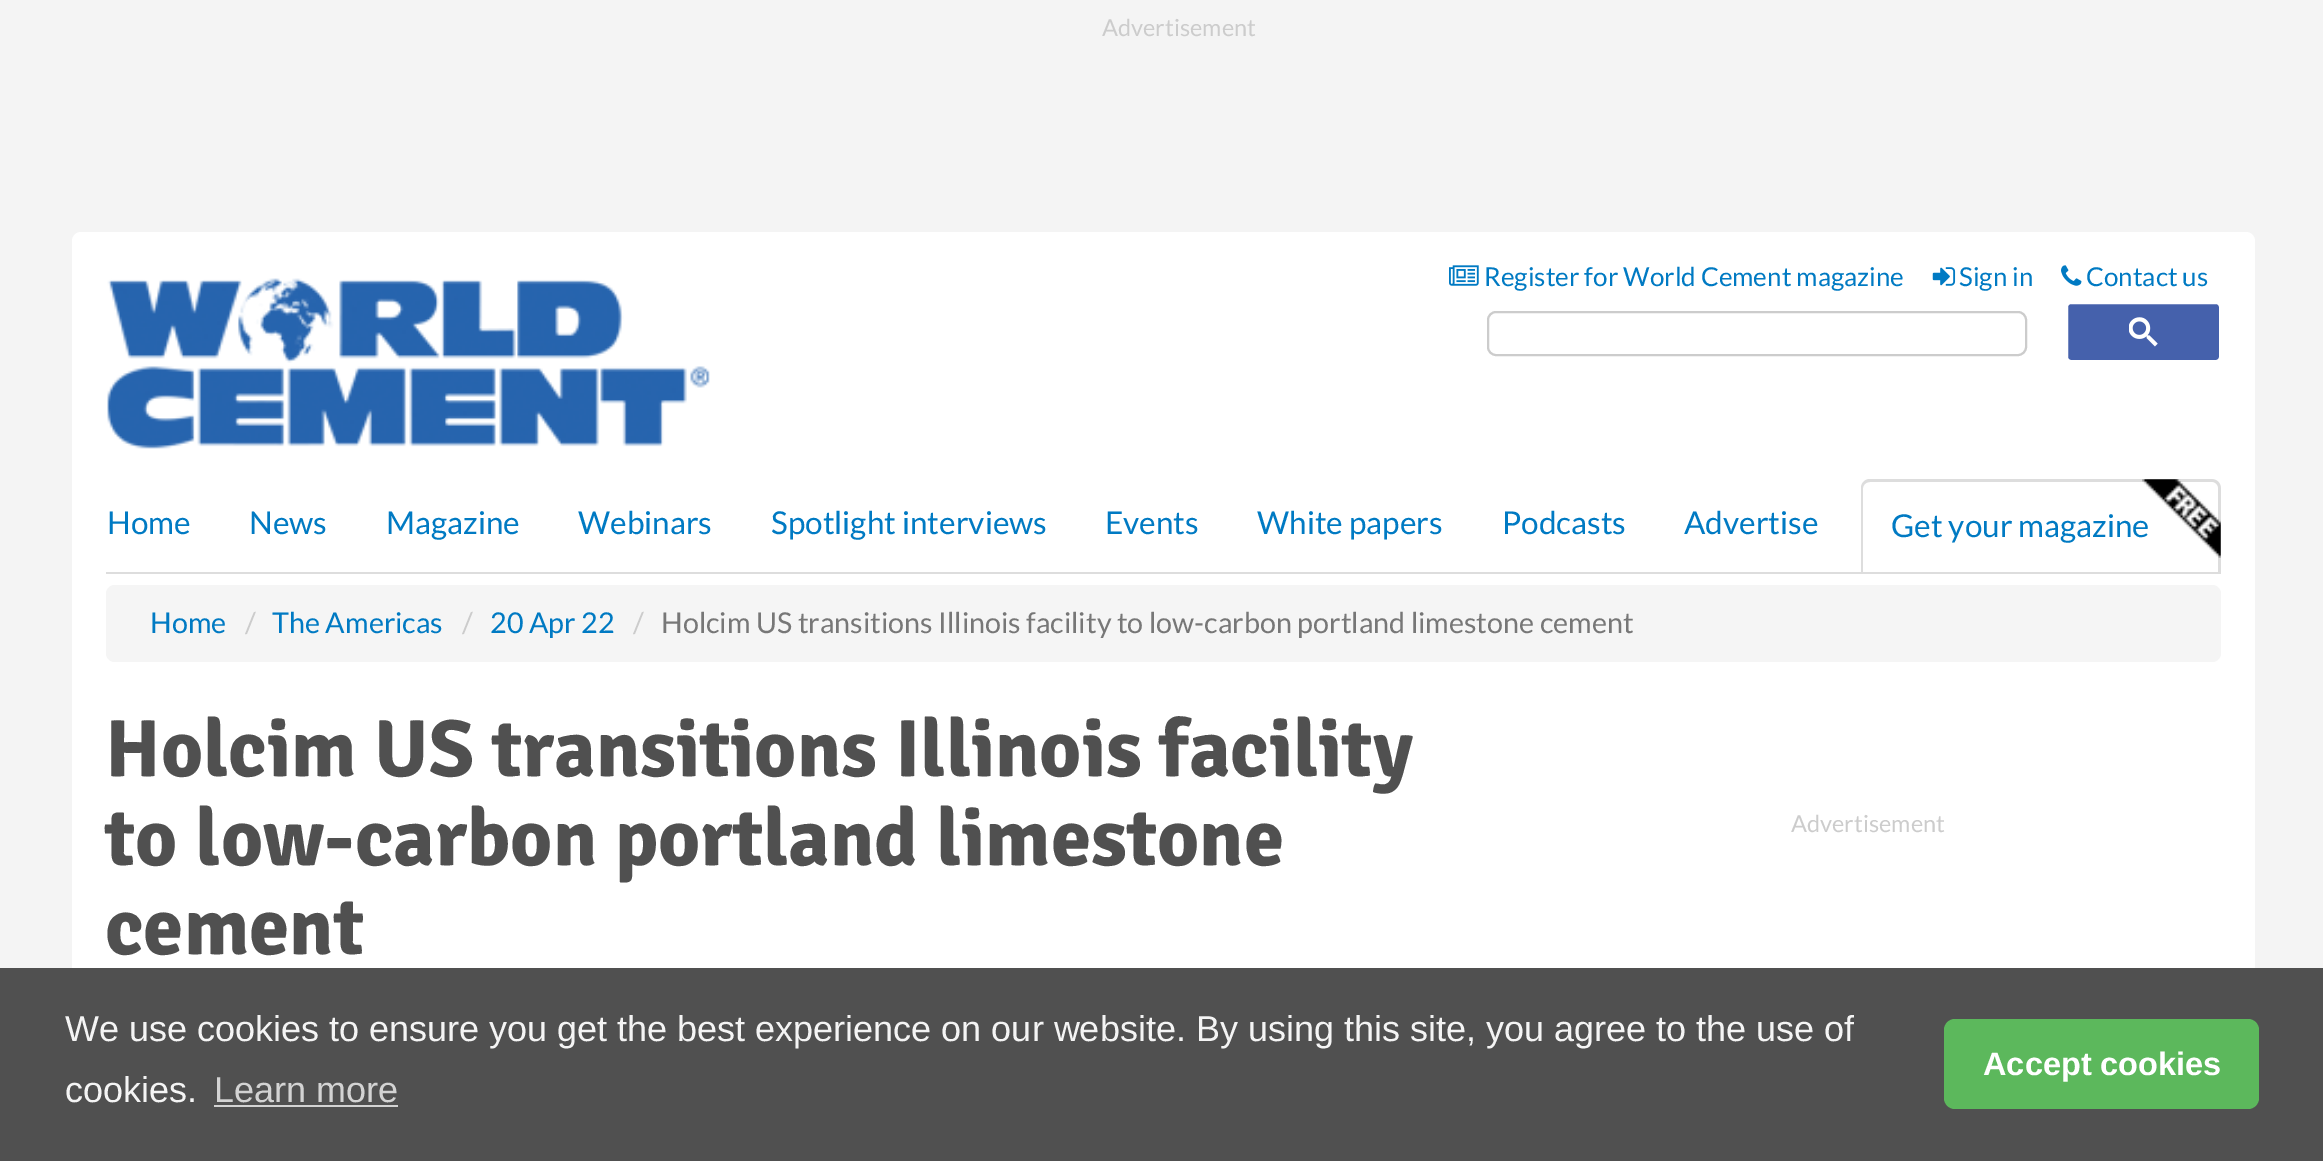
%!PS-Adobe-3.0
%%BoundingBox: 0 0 2323 1161
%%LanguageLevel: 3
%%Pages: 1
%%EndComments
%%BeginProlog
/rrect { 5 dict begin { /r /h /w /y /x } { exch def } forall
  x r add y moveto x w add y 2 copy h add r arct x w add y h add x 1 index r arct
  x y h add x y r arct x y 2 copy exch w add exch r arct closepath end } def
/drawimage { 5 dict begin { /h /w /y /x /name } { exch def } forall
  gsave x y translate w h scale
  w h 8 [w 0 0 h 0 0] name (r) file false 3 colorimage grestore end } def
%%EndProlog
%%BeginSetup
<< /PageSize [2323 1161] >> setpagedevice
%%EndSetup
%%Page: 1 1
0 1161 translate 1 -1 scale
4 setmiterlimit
0.957 setgray
0 0 2323 1161 rectfill
1 setgray
72 232 2183 88 9 rrect fill
(images/1.raw) 1449 265 30 21 drawimage
(images/2.raw) 1932 267 24 19 drawimage
(images/3.raw) 2061 265 21 21 drawimage
72 313 2183 166 rectfill
(images/4.raw) 107 278 603 171 drawimage
0.8 setgray
2 setlinewidth
1488 312 538 43 8 rrect stroke
0.271 0.38 0.675 setrgbcolor
2067 303 153 58 4 rrect gsave fill grestore
1 setgray
stroke
(images/5.raw) 2129 317 29 30 drawimage
72 479 2183 228 rectfill
0.867 setgray
106 572 2115 2 rectfill
newpath 1870 479 moveto 2212 479 lineto 2217 479 2221 483 2221 488 curveto 2221 572 lineto 1861 572 lineto 1861 488 lineto 1861 483 1865 479 1870 479 curveto closepath 1870 482 moveto 2212 482 lineto 2215 482 2218 485 2218 488 curveto 2218 572 lineto 1863 572 lineto 1863 488 lineto 1863 485 1866 482 1870 482 curveto closepath eofill
0.961 setgray
106 585 2115 77 9 rrect fill
1 setgray
72 698 2183 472 9 rrect fill
0.314 setgray
0 968 2323 193 rectfill
0.827 setgray
214 1105 184 2 rectfill
0.361 0.722 0.361 setrgbcolor
1944 1019 315 90 11 rrect fill
/Lato-Regular [23.5 0 0 -23.5 0 0] selectfont
0.8 setgray
1102 36 moveto (Advertisement) show
/Lato-Regular [26 0 0 -26 0 0] selectfont
0 0.478 0.765 setrgbcolor
1484 286 moveto (Register for World Cement magazine) show
1959 286 moveto (Sign in) show
2086 286 moveto (Contact us) show
/Lato-Regular [31.5 0 0 -31.5 0 0] selectfont
107 534 moveto (Home) show
249 534 moveto (News) show
386 534 moveto (Magazine) show
578 534 moveto (Webinars) show
771 534 moveto (Spotlight interviews) show
1105 534 moveto (Events) show
1257 534 moveto (White papers) show
1502 534 moveto (Podcasts) show
1684 534 moveto (Advertise) show
1891 537 moveto (Get your magazine) show
(images/6.raw) 2142 479 79 79 drawimage
/Lato-Regular [28.7 0 0 -28.7 0 0] selectfont
150 633 moveto (Home) show
0.8 setgray
245 633 moveto (/) show
0 0.478 0.765 setrgbcolor
272 633 moveto (The Americas) show
0.8 setgray
462 633 moveto (/) show
0 0.478 0.765 setrgbcolor
490 633 moveto (20 Apr 22) show
0.8 setgray
633 633 moveto (/) show
0.467 setgray
661 633 moveto (Holcim US transitions Illinois facility to low-carbon portland limestone cement) show
/Signika-Bold [81 0 0 -81 0 0] selectfont
0.314 setgray
105 776 moveto (Holcim US transitions Illinois facility) show
105 865 moveto (to low-carbon portland limestone) show
105 954 moveto (cement) show
/Lato-Regular [23.5 0 0 -23.5 0 0] selectfont
0.8 setgray
1791 832 moveto (Advertisement) show
/LiberationSans-Regular [36 0 0 -36 0 0] selectfont
0.957 setgray
65 1041 moveto (We use cookies to ensure you get the best experience on our website. By using this site, you agree to the use of) show
65 1102 moveto (cookies.) show
0.827 setgray
214 1102 moveto (Learn more) show
/LiberationSans-Bold [32.5 0 0 -32.5 0 0] selectfont
1 setgray
1983 1075 moveto (Accept cookies) show
showpage
%%EOF
